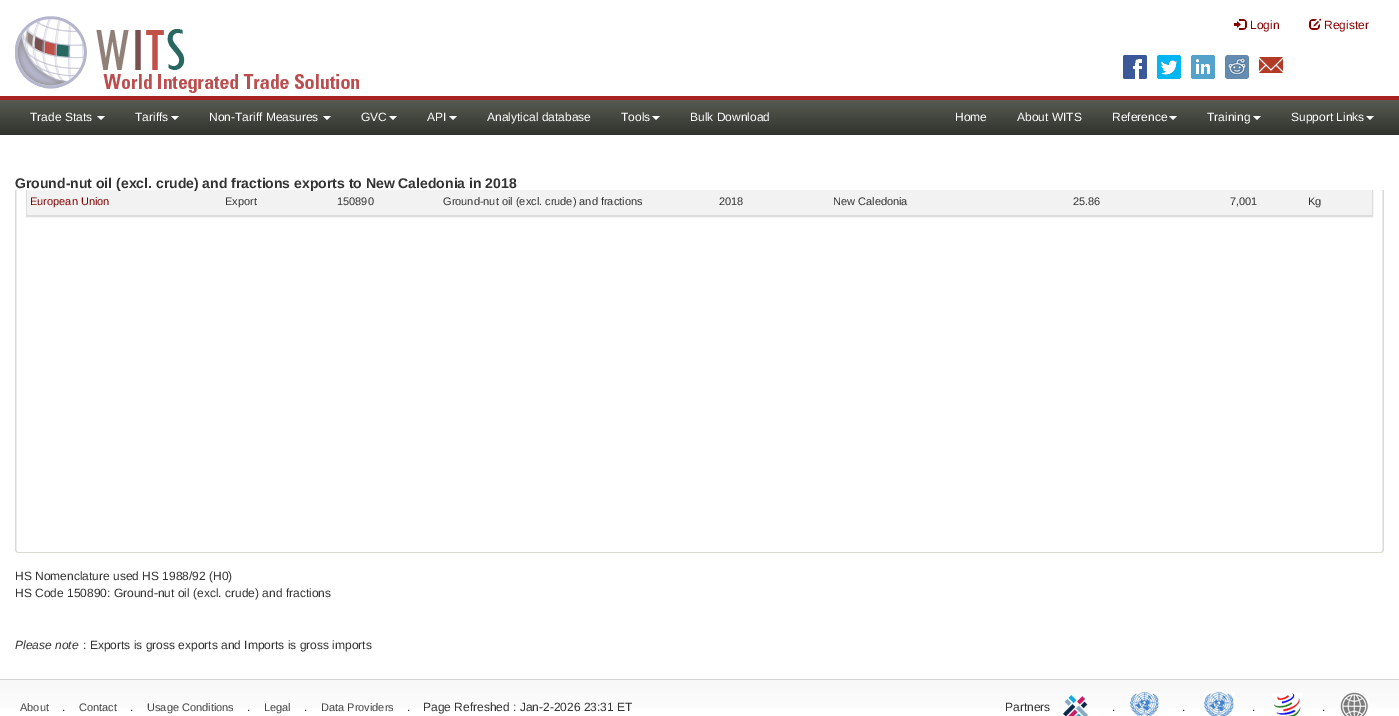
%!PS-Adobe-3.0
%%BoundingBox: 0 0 1399 716
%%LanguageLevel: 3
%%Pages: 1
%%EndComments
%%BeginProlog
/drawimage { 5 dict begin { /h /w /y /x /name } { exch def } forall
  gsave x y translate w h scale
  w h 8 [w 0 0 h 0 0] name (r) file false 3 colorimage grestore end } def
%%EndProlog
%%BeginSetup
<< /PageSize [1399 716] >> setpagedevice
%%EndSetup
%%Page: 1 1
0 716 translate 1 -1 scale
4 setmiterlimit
1 setgray
0 0 1399 716 rectfill
0.922 setgray
newpath 18 92 moveto 16 93 lineto 16 550 lineto 17 552 lineto 17 94 lineto 1382 94 lineto 1382 552 lineto 1383 550 lineto 1383 93 lineto 1381 92 lineto closepath fill
0.843 0.863 0.812 setrgbcolor
newpath 1384 550 moveto 1384 93 lineto 1383 91 lineto 1383 92 lineto 1383 550 lineto 1382 551 lineto 1383 552 lineto closepath fill
newpath 18 553 moveto 1381 553 lineto 1383 552 lineto 1382 551 lineto 1381 552 lineto 18 552 lineto 17 551 lineto 16 552 lineto closepath fill
newpath 15 93 moveto 15 550 lineto 16 552 lineto 17 551 lineto 16 550 lineto 16 92 lineto 16 91 lineto closepath fill
1 setgray
15 91 1369 5 rectfill
0.667 0.133 0.133 setrgbcolor
0 96 1399 4 rectfill
(images/1.raw) 15 16 344 77 drawimage
(images/2.raw) 1234 19 13 11 drawimage
(images/3.raw) 1309 18 13 12 drawimage
(images/4.raw) 1123 55 24 24 drawimage
(images/5.raw) 1157 55 24 24 drawimage
(images/6.raw) 1191 55 24 24 drawimage
(images/7.raw) 1225 55 24 24 drawimage
(images/8.raw) 1259 57 24 16 drawimage
0.867 setgray
26.5 125.5 1346 91 rectstroke
1 setgray
15 135 1369 55 rectfill
gsave newpath 0 100 moveto 1399 100 lineto 1399 135 lineto 0 135 lineto closepath clip newpath
<< /ShadingType 2 /ColorSpace /DeviceRGB /Coords [700 100 700 135] /Extend [true true] /Function << /FunctionType 2 /Domain [0 1] /C0 [0.345 0.357 0.322] /C1 [0.188 0.196 0.176] /N 1 >> >> shfill grestore
newpath 97 116 moveto 105 116 lineto 101 120 lineto closepath fill
newpath 171 116 moveto 179 116 lineto 175 120 lineto closepath fill
newpath 323 116 moveto 331 116 lineto 327 120 lineto closepath fill
newpath 389 116 moveto 397 116 lineto 393 120 lineto closepath fill
newpath 449 116 moveto 457 116 lineto 453 120 lineto closepath fill
newpath 652 116 moveto 660 116 lineto 656 120 lineto closepath fill
newpath 1169 116 moveto 1177 116 lineto 1173 120 lineto closepath fill
newpath 1253 116 moveto 1261 116 lineto 1257 120 lineto closepath fill
newpath 1366 116 moveto 1374 116 lineto 1370 120 lineto closepath fill
0.949 setgray
27 190 1345 25 rectfill
0.867 setgray
27 215 1345 1 rectfill
gsave newpath 0 680 moveto 1399 680 lineto 1399 708 lineto 0 708 lineto closepath clip newpath
<< /ShadingType 2 /ColorSpace /DeviceRGB /Coords [700 680 700 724] /Extend [true true] /Function << /FunctionType 2 /Domain [0 1] /C0 [0.973 0.973 0.973] /C1 [1 1 1] /N 1 >> >> shfill grestore
0.831 setgray
0 679 1399 1 rectfill
(images/9.raw) 1063 694 25 22 drawimage
(images/10.raw) 1130 692 30 24 drawimage
(images/11.raw) 1204 692 31 24 drawimage
(images/12.raw) 1272 693 31 23 drawimage
(images/13.raw) 1340 692 29 24 drawimage
/LiberationSans-Regular [12 0 0 -12 0 0] selectfont
0.522 0 0 setrgbcolor
1250 29 moveto (Login) show
1324 29 moveto (Register) show
1 setgray
30 121 moveto (Trade Stats) show
135 121 moveto (Tariffs) show
209 121 moveto (Non-Tariff Measures) show
361 121 moveto (GVC) show
427 121 moveto (API) show
487 121 moveto (Analytical database) show
621 121 moveto (Tools) show
690 121 moveto (Bulk Download) show
955 121 moveto (Home) show
1017 121 moveto (About WITS) show
1112 121 moveto (Reference) show
1207 121 moveto (Training) show
1291 121 moveto (Support Links) show
/LiberationSans-Bold [14 0 0 -14 0 0] selectfont
0.2 setgray
15 188 moveto (Ground-nut oil \(excl. crude\) and fractions exports to New Caledonia in 2018) show
/LiberationSans-Regular [11 0 0 -11 0 0] selectfont
0.522 0 0 setrgbcolor
30 205 moveto (European Union) show
0.2 setgray
225 205 moveto (Export) show
337 205 moveto (150890) show
443 205 moveto (Ground-nut oil \(excl. crude\) and fractions) show
719 205 moveto (2018) show
833 205 moveto (New Caledonia) show
1073 205 moveto (25.86) show
1230 205 moveto (7,001) show
1308 205 moveto (Kg) show
/LiberationSans-Regular [12 0 0 -12 0 0] selectfont
15 580 moveto (HS Nomenclature used HS 1988/92 \(H0\)) show
15 597 moveto (HS Code 150890: Ground-nut oil \(excl. crude\) and fractions) show
/LiberationSans-Italic [12 0 0 -12 0 0] selectfont
15 649 moveto (Please note) show
/LiberationSans-Regular [12 0 0 -12 0 0] selectfont
83 649 moveto (: Exports is gross exports and Imports is gross imports) show
/LiberationSans-Regular [11 0 0 -11 0 0] selectfont
0.267 setgray
20 711 moveto (About) show
/LiberationSans-Regular [12 0 0 -12 0 0] selectfont
0.2 setgray
62 711 moveto (.) show
/LiberationSans-Regular [11 0 0 -11 0 0] selectfont
0.267 setgray
79 711 moveto (Contact) show
/LiberationSans-Regular [12 0 0 -12 0 0] selectfont
0.2 setgray
130 711 moveto (.) show
/LiberationSans-Regular [11 0 0 -11 0 0] selectfont
0.267 setgray
147 711 moveto (Usage Conditions) show
/LiberationSans-Regular [12 0 0 -12 0 0] selectfont
0.2 setgray
247 711 moveto (.) show
/LiberationSans-Regular [11 0 0 -11 0 0] selectfont
0.267 setgray
264 711 moveto (Legal) show
/LiberationSans-Regular [12 0 0 -12 0 0] selectfont
0.2 setgray
304 711 moveto (.) show
/LiberationSans-Regular [11 0 0 -11 0 0] selectfont
0.267 setgray
321 711 moveto (Data Providers) show
/LiberationSans-Regular [12 0 0 -12 0 0] selectfont
0.2 setgray
407 711 moveto (.) show
423 711 moveto (Page Refreshed : Jan-2-2026 23:31 ET) show
1005 711 moveto (Partners) show
1112 711 moveto (.) show
1182 711 moveto (.) show
1252 711 moveto (.) show
1322 711 moveto (.) show
showpage
%%EOF
